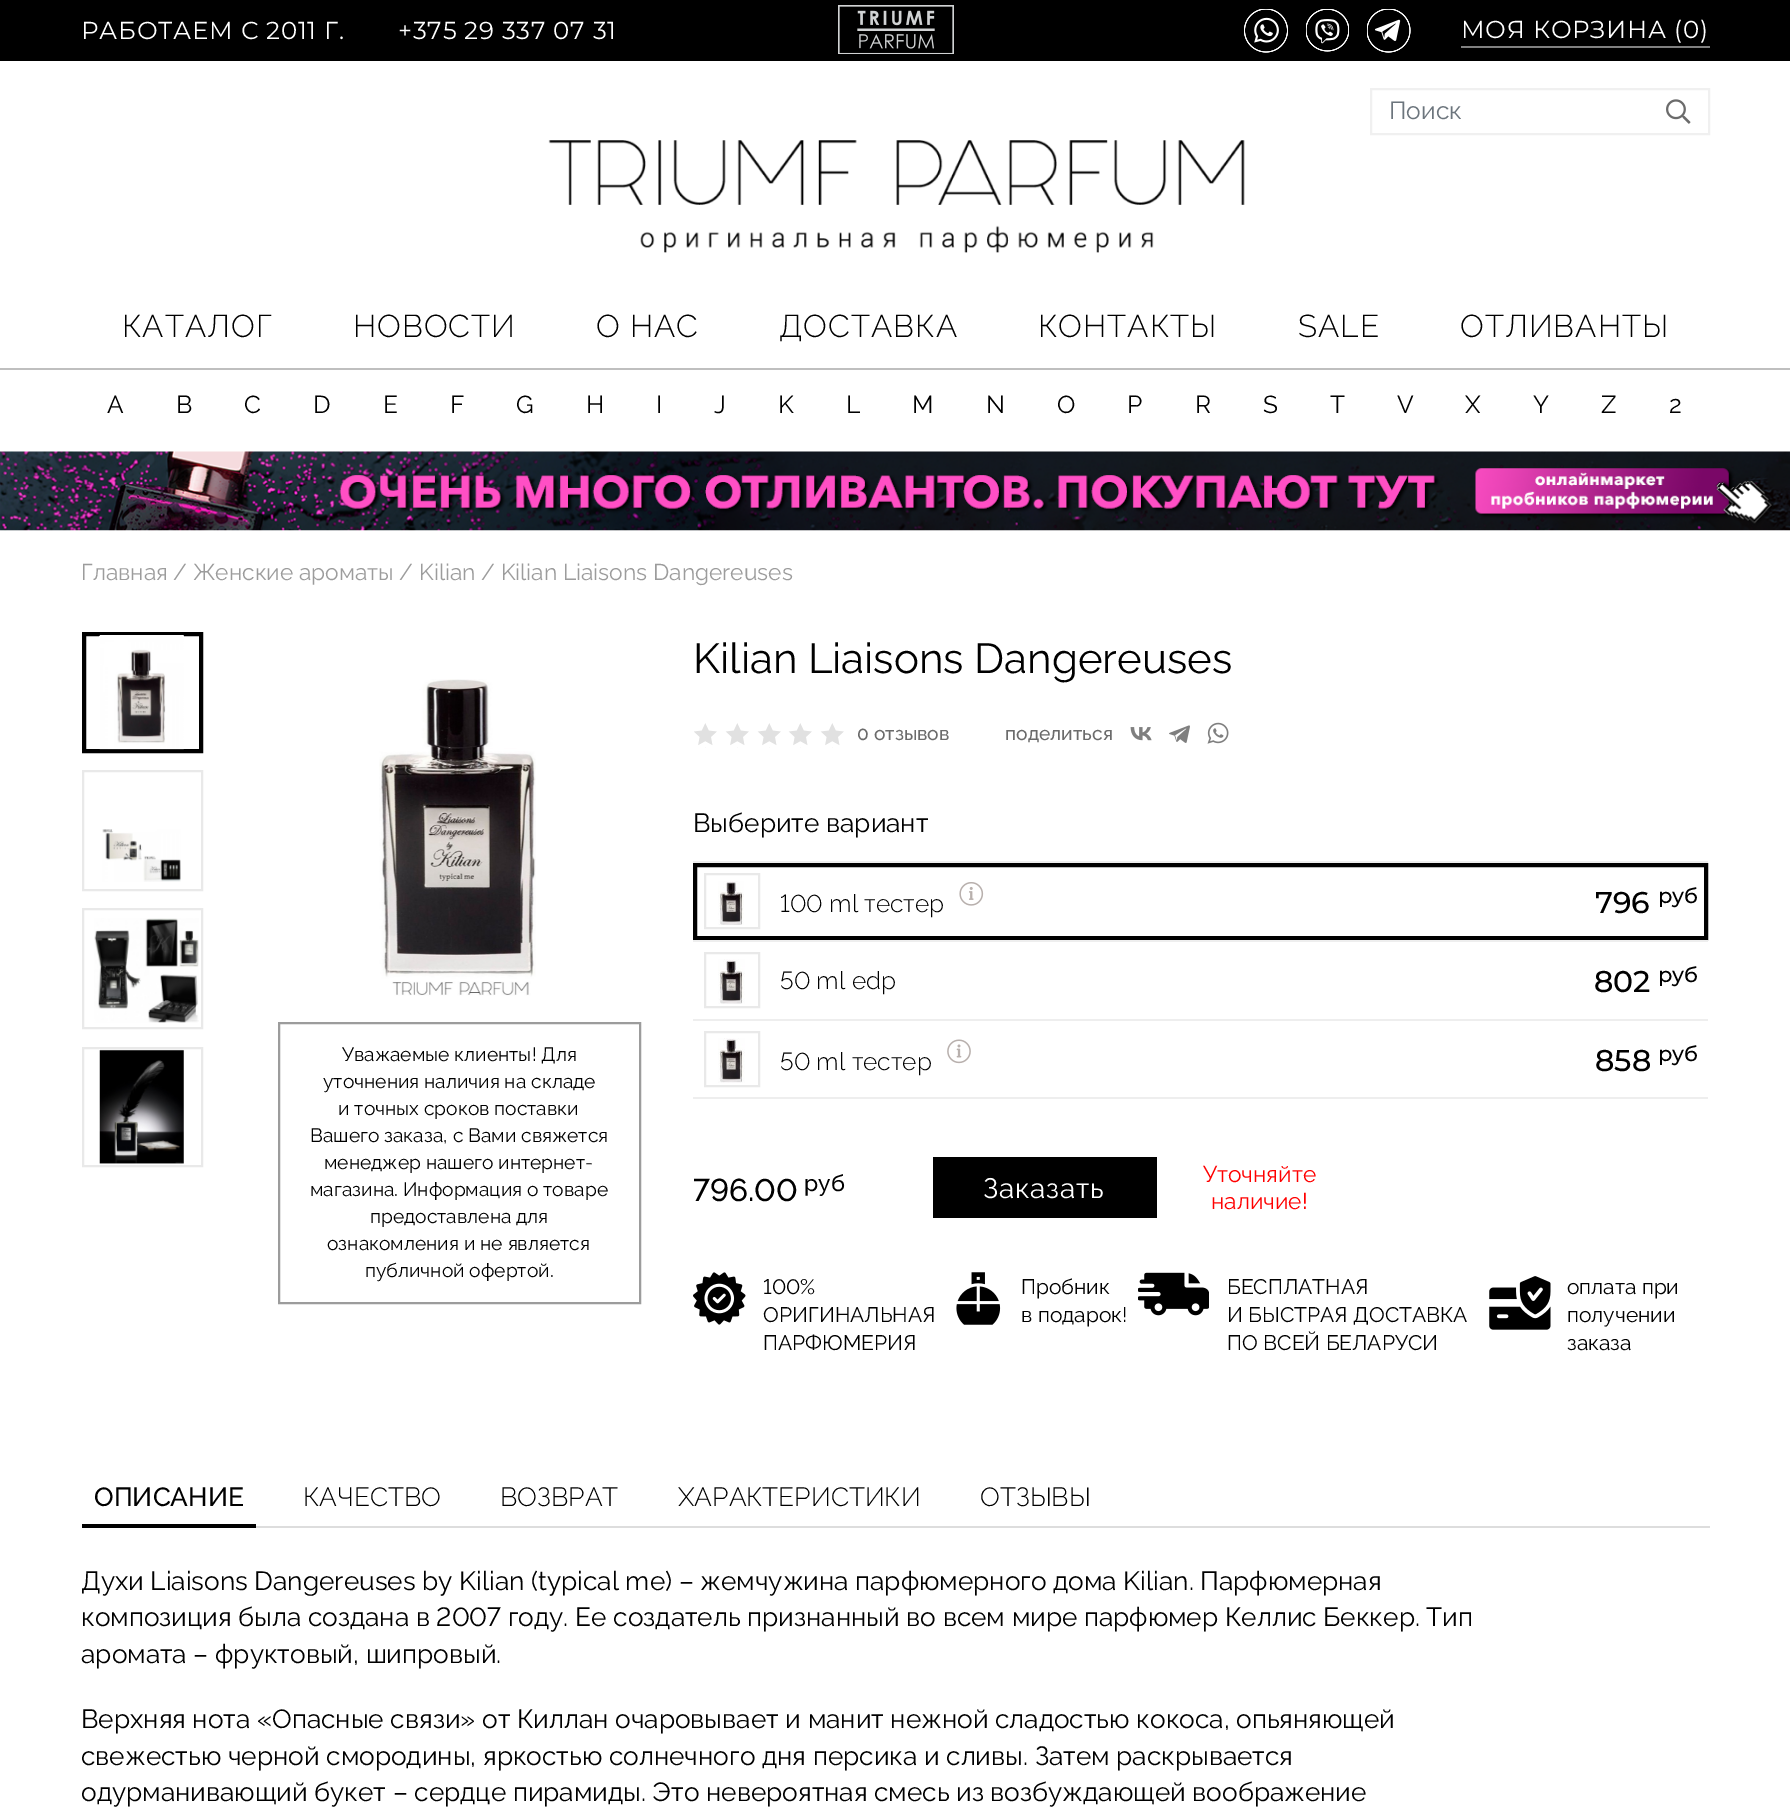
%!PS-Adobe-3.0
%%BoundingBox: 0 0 1790 1812
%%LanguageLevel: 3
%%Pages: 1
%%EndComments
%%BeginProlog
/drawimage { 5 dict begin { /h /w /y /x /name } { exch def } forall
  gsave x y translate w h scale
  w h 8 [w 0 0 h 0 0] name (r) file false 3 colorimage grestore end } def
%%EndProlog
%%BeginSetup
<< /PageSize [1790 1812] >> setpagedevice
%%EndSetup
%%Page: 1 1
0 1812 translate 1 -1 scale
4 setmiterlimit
1 setgray
0 0 1790 1812 rectfill
0 setgray
0 0 1790 61 rectfill
(images/1.raw) 838 5 116 49 drawimage
(images/2.raw) 1244 9 44 44 drawimage
(images/3.raw) 1306 9 43 43 drawimage
(images/4.raw) 1367 9 44 44 drawimage
0.502 setgray
1461 46 249 2 rectfill
0.941 setgray
2 setlinewidth
1371 89 338 45 rectstroke
(images/5.raw) 1666 99 25 25 drawimage
(images/6.raw) 548 140 697 113 drawimage
0.749 setgray
0 368 1790 2 rectfill
(images/7.raw) 0 451 1790 80 drawimage
0 setgray
85 635 115 115 rectstroke
83 633 119 119 rectstroke
(images/8.raw) 99 635 85 115 drawimage
0.914 setgray
83 771 119 119 rectstroke
(images/9.raw) 102 829 79 53 drawimage
83 909 119 119 rectstroke
(images/10.raw) 94 918 105 105 drawimage
83 1048 119 118 rectstroke
(images/11.raw) 99 1049 85 115 drawimage
(images/12.raw) 379 679 157 317 drawimage
0.612 setgray
279 1023 361 280 rectstroke
(images/13.raw) 694 723 150 25 drawimage
(images/14.raw) 1130 727 22 14 drawimage
(images/15.raw) 1169 725 21 18 drawimage
(images/16.raw) 1207 722 22 22 drawimage
0.933 setgray
693 861 1015 2 rectfill
(images/17.raw) 718 881 26 44 drawimage
0.914 setgray
705 874 54 54 rectstroke
0 setgray
4 setlinewidth
695 865 1011 73 rectstroke
0.933 setgray
693 940 1015 2 rectfill
(images/18.raw) 959 882 25 24 drawimage
(images/19.raw) 718 959 27 45 drawimage
0.914 setgray
2 setlinewidth
705 953 54 54 rectstroke
0.933 setgray
693 1019 1015 2 rectfill
(images/20.raw) 718 1038 27 45 drawimage
0.914 setgray
705 1032 54 54 rectstroke
0.933 setgray
693 1097 1015 2 rectfill
(images/21.raw) 947 1039 24 25 drawimage
0 setgray
933 1157 224 61 rectfill
(images/22.raw) 693 1272 53 53 drawimage
(images/23.raw) 956 1272 45 53 drawimage
(images/24.raw) 1138 1272 71 44 drawimage
(images/25.raw) 1489 1276 62 54 drawimage
0.867 setgray
256 1526 1454 2 rectfill
0 setgray
82 1524 174 4 rectfill
/Montserrat-Regular [24.5 0 0 -24.5 0 0] selectfont
1 setgray
81 39 moveto 0.75 0 (РАБОТАЕМ С 2011 Г.) ashow
398 39 moveto 0.75 0 (+375 29 337 07 31) ashow
1461 38 moveto 0.75 0 (МОЯ КОРЗИНА \(0\)) ashow
/Raleway-Regular [24.5 0 0 -24.5 0 0] selectfont
0.424 0.459 0.49 setrgbcolor
1389 119 moveto (Поиск) show
/Raleway-Light [31.5 0 0 -31.5 0 0] selectfont
0 setgray
122 337 moveto 1 0 (КАТАЛОГ) ashow
353 337 moveto 1 0 (НОВОСТИ) ashow
596 337 moveto 1 0 (О НАС) ashow
779 337 moveto 1 0 (ДОСТАВКА) ashow
1038 337 moveto 1 0 (КОНТАКТЫ) ashow
1298 337 moveto 1 0 (SALE) ashow
1460 337 moveto 1 0 (ОТЛИВАНТЫ) ashow
/Raleway-Regular [24.5 0 0 -24.5 0 0] selectfont
107 413 moveto (A) show
176 413 moveto (B) show
244 413 moveto (C) show
313 413 moveto (D) show
383 413 moveto (E) show
450 413 moveto (F) show
516 413 moveto (G) show
586 413 moveto (H) show
656 413 moveto (I) show
714 413 moveto (J) show
778 413 moveto (K) show
846 413 moveto (L) show
912 413 moveto (M) show
986 413 moveto (N) show
1057 413 moveto (O) show
1127 413 moveto (P) show
1195 413 moveto (R) show
1263 413 moveto (S) show
1330 413 moveto (T) show
1397 413 moveto (V) show
1465 413 moveto (X) show
1533 413 moveto (Y) show
1601 413 moveto (Z) show
1669 413 moveto (2) show
/Raleway-Regular [22.75 0 0 -22.75 0 0] selectfont
0.612 setgray
81 580 moveto (Главная / Женские ароматы / Kilian / Kilian Liaisons Dangereuses) show
/Raleway-Regular [19.25 0 0 -19.25 0 0] selectfont
0 setgray
342 1061 moveto (Уважаемые клиенты! Для) show
323 1088 moveto (уточнения наличия на складе) show
338 1115 moveto (и точных сроков поставки) show
310 1142 moveto (Вашего заказа, с Вами свяжется) show
324 1169 moveto (менеджер нашего интернет-) show
310 1196 moveto (магазина. Информация о товаре) show
370 1223 moveto (предоставлена для) show
327 1250 moveto (ознакомления и не является) show
365 1277 moveto (публичной офертой.) show
/Raleway-Regular [42 0 0 -42 0 0] selectfont
693 673 moveto (Kilian Liaisons Dangereuses) show
/Raleway-Medium [19.25 0 0 -19.25 0 0] selectfont
0.42 setgray
857 740 moveto (0 отзывов) show
1005 740 moveto (поделиться) show
/Raleway-Regular [26.25 0 0 -26.25 0 0] selectfont
0 setgray
693 832 moveto (Выберите вариант) show
/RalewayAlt-Light [24.5 0 0 -24.5 0 0] selectfont
780 912 moveto (100 ml тестер) show
/Montserrat-Medium [30 0 0 -30 0 0] selectfont
1595 913 moveto (796) show
/Montserrat-Medium [21 0 0 -21 0 0] selectfont
1658 903 moveto (руб) show
/RalewayAlt-Light [24.5 0 0 -24.5 0 0] selectfont
780 989 moveto (50 ml edp) show
/Montserrat-Medium [30 0 0 -30 0 0] selectfont
1594 992 moveto (802) show
/Montserrat-Medium [21 0 0 -21 0 0] selectfont
1658 982 moveto (руб) show
/RalewayAlt-Light [24.5 0 0 -24.5 0 0] selectfont
780 1070 moveto (50 ml тестер) show
/Montserrat-Medium [30 0 0 -30 0 0] selectfont
1595 1071 moveto (858) show
/Montserrat-Medium [21 0 0 -21 0 0] selectfont
1658 1061 moveto (руб) show
/RalewayAlt-Medium [31.5 0 0 -31.5 0 0] selectfont
693 1201 moveto (796.00) show
/Raleway-Medium [22.75 0 0 -22.75 0 0] selectfont
804 1191 moveto (руб) show
/Raleway-Regular [28 0 0 -28 0 0] selectfont
1 setgray
983 1198 moveto 0.75 0 (Заказать) ashow
/Raleway-Regular [22.75 0 0 -22.75 0 0] selectfont
1 0 0 setrgbcolor
1203 1182 moveto (Уточняйте) show
1211 1209 moveto (наличие!) show
/RalewayAlt-Regular [21 0 0 -21 0 0] selectfont
0 setgray
763 1294 moveto (100%) show
/Raleway-Regular [21 0 0 -21 0 0] selectfont
763 1322 moveto (ОРИГИНАЛЬНАЯ) show
763 1350 moveto (ПАРФЮМЕРИЯ) show
1021 1294 moveto (Пробник) show
1021 1322 moveto (в подарок!) show
1227 1294 moveto (БЕСПЛАТНАЯ) show
1227 1322 moveto (И БЫСТРАЯ ДОСТАВКА) show
1227 1350 moveto (ПО ВСЕЙ БЕЛАРУСИ) show
1567 1294 moveto (оплата при) show
1567 1322 moveto (получении) show
1567 1350 moveto (заказа) show
/Raleway-Medium [26.25 0 0 -26.25 0 0] selectfont
94 1506 moveto (ОПИСАНИЕ) show
/Raleway-Light [26.25 0 0 -26.25 0 0] selectfont
303 1506 moveto (КАЧЕСТВО) show
500 1506 moveto (ВОЗВРАТ) show
678 1506 moveto (ХАРАКТЕРИСТИКИ) show
980 1506 moveto (ОТЗЫВЫ) show
/Raleway-Regular [26.25 0 0 -26.25 0 0] selectfont
81 1590 moveto (Духи Liaisons Dangereuses by Kilian \(typical me\) – жемчужина парфюмерного дома Kilian. Парфюмерная) show
/RalewayAlt-Regular [26.25 0 0 -26.25 0 0] selectfont
81 1626 moveto (композиция была создана в 2007 году. Ее создатель признанный во всем мире парфюмер Келлис Беккер. Тип) show
/Raleway-Regular [26.25 0 0 -26.25 0 0] selectfont
81 1663 moveto (аромата – фруктовый, шипровый.) show
81 1728 moveto (Верхняя нота «Опасные связи» от Киллан очаровывает и манит нежной сладостью кокоса, опьяняющей) show
81 1765 moveto (свежестью черной смородины, яркостью солнечного дня персика и сливы. Затем раскрывается) show
81 1801 moveto (одурманивающий букет – сердце пирамиды. Это невероятная смесь из возбуждающей воображение) show
showpage
%%EOF
